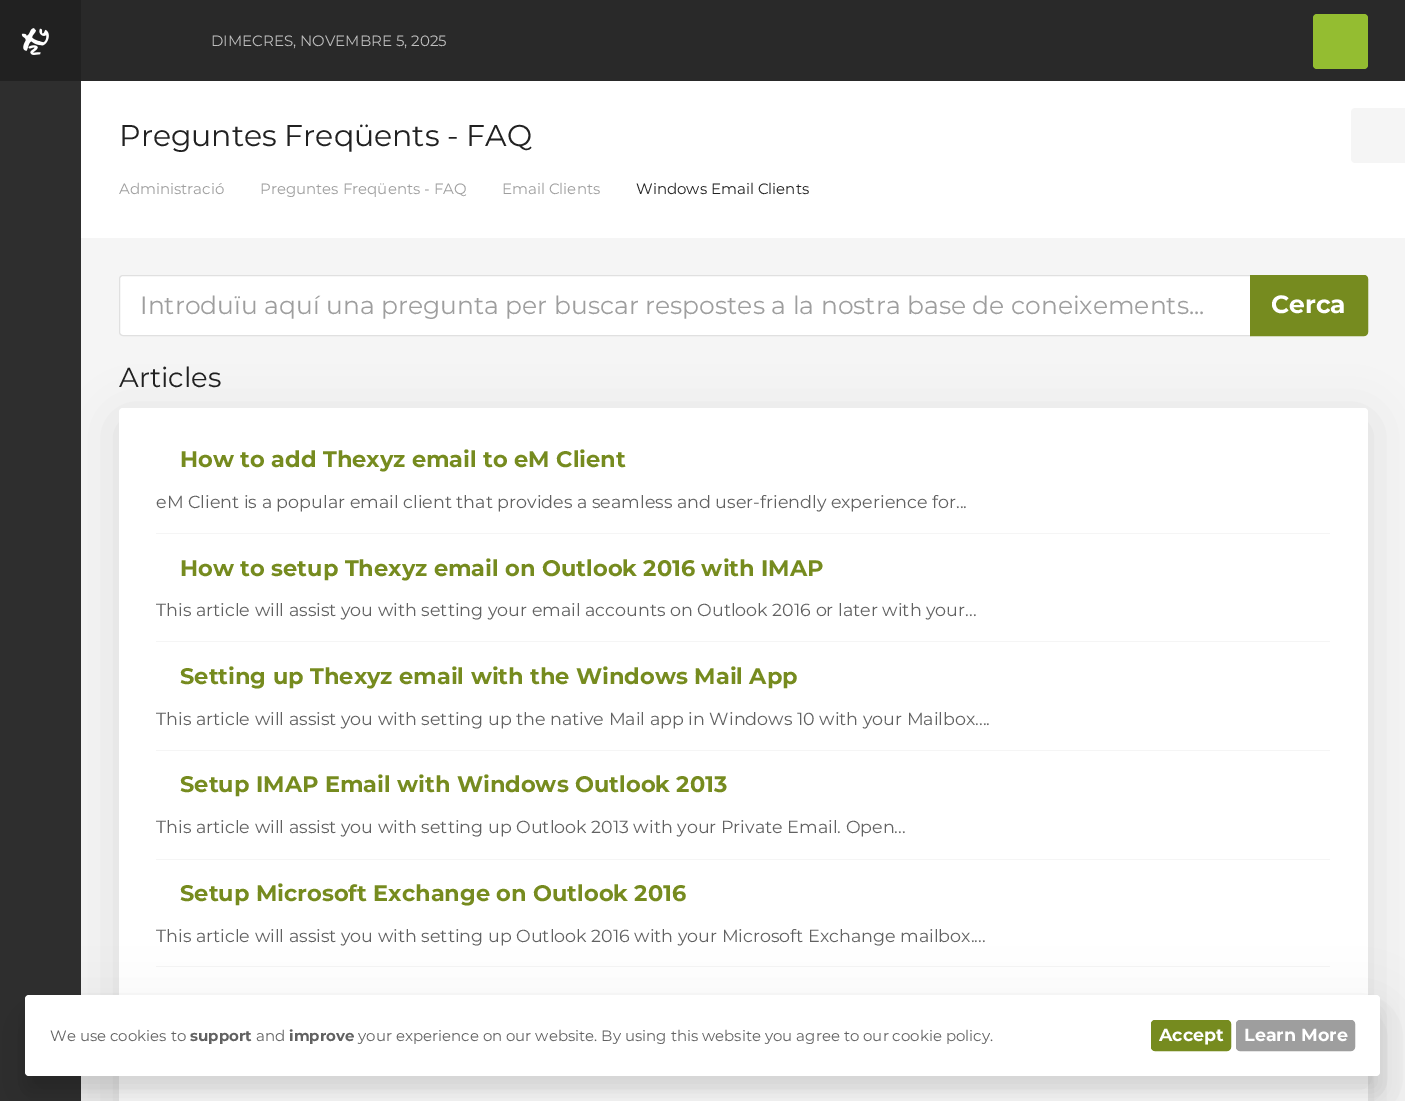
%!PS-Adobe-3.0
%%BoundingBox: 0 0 1405 1101
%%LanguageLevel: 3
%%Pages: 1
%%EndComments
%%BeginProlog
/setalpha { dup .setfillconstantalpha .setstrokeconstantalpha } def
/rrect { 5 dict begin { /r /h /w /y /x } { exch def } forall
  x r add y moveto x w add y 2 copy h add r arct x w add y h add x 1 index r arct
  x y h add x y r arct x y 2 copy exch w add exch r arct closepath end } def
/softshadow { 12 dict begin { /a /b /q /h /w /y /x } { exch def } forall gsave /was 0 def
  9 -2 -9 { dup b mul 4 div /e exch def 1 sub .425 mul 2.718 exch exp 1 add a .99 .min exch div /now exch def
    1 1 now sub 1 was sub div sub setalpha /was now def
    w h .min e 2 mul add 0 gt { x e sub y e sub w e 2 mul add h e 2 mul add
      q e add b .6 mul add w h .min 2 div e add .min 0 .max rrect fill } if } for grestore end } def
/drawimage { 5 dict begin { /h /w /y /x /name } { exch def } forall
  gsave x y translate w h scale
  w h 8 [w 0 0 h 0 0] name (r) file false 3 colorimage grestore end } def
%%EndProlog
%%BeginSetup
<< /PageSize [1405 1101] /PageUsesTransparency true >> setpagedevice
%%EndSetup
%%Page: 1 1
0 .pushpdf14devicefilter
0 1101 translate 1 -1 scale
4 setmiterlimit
0.961 setgray
0 0 1405 1101 rectfill
0 setgray
119 420 1249 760 4 25 0.1 softshadow
0.18 setgray
0 81 81 1020 rectfill
0.129 setgray
0 0 81 81 rectfill
(images/1.raw) 21 28 28 27 drawimage
0.161 setgray
81 0 1324 81 rectfill
0.58 0.741 0.192 setrgbcolor
1313 14 55 55 4 rrect fill
1 setgray
81 81 1324 157 rectfill
0.961 setgray
newpath 1355 108 moveto 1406 108 lineto 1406 163 lineto 1355 163 lineto 1353 163 1351 161 1351 159 curveto 1351 112 lineto 1351 110 1353 108 1355 108 curveto closepath fill
1 setgray
newpath 123 275.5 moveto 1250.5 275.5 lineto 1250.5 335.5 lineto 123 335.5 lineto 121 335.5 119.5 334 119.5 332 curveto 119.5 279 lineto 119.5 277 121 275.5 123 275.5 curveto closepath gsave fill grestore
0.878 setgray
stroke
0.463 0.545 0.122 setrgbcolor
newpath 1250.5 275.5 moveto 1364 275.5 lineto 1366 275.5 1367.5 277 1367.5 279 curveto 1367.5 332 lineto 1367.5 334 1366 335.5 1364 335.5 curveto 1250.5 335.5 lineto closepath gsave fill grestore
stroke
1 setgray
119 408 1249 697 4 rrect fill
0.961 setgray
156 533 1174 1 rectfill
156 641 1174 1 rectfill
156 750 1174 1 rectfill
156 859 1174 1 rectfill
156 966 1174 1 rectfill
0 setgray
25 1010 1355 81 4 9.5 0.1 softshadow
25 1016 1355 82 4 31 0.1 softshadow
1 setgray
25 995 1355 81 4 rrect fill
0.463 0.545 0.122 setrgbcolor
1151.5 1020.5 79 30 3.5 rrect gsave fill grestore
stroke
0.62 setgray
1236.5 1020.5 118 30 3.5 rrect gsave fill grestore
stroke
/Montserrat-Regular [15 0 0 -15 0 0] selectfont
0.749 setgray
211 46 moveto (DIMECRES, NOVEMBRE 5, 2025) show
/Montserrat-Regular [30 0 0 -30 0 0] selectfont
0.129 setgray
119 146 moveto (Preguntes Freqüents - FAQ) show
/Montserrat-Regular [15 0 0 -15 0 0] selectfont
0.62 setgray
119 194 moveto (Administració) show
260 194 moveto (Preguntes Freqüents - FAQ) show
502 194 moveto (Email Clients) show
0.129 setgray
636 194 moveto (Windows Email Clients) show
/Montserrat-Regular [25 0 0 -25 0 0] selectfont
0.62 setgray
140 314 moveto (Introduïu aquí una pregunta per buscar respostes a la nostra base de coneixements...) show
/Montserrat-Bold [25 0 0 -25 0 0] selectfont
1 setgray
1271 313 moveto (Cerca) show
/Montserrat-Regular [27.5 0 0 -27.5 0 0] selectfont
0.129 setgray
119 387 moveto (Articles) show
/Montserrat-Bold [22.5 0 0 -22.5 0 0] selectfont
0.463 0.545 0.122 setrgbcolor
180 467 moveto (How to add Thexyz email to eM Client) show
/Montserrat-Regular [17.5 0 0 -17.5 0 0] selectfont
0.38 setgray
156 508 moveto (eM Client is a popular email client that provides a seamless and user-friendly experience for...) show
/Montserrat-Bold [22.5 0 0 -22.5 0 0] selectfont
0.463 0.545 0.122 setrgbcolor
180 576 moveto (How to setup Thexyz email on Outlook 2016 with IMAP) show
/Montserrat-Regular [17.5 0 0 -17.5 0 0] selectfont
0.38 setgray
156 616 moveto (This article will assist you with setting your email accounts on Outlook 2016 or later with your...) show
/Montserrat-Bold [22.5 0 0 -22.5 0 0] selectfont
0.463 0.545 0.122 setrgbcolor
180 684 moveto (Setting up Thexyz email with the Windows Mail App) show
/Montserrat-Regular [17.5 0 0 -17.5 0 0] selectfont
0.38 setgray
156 725 moveto (This article will assist you with setting up the native Mail app in Windows 10 with your Mailbox....) show
/Montserrat-Bold [22.5 0 0 -22.5 0 0] selectfont
0.463 0.545 0.122 setrgbcolor
180 792 moveto (Setup IMAP Email with Windows Outlook 2013) show
/Montserrat-Regular [17.5 0 0 -17.5 0 0] selectfont
0.38 setgray
156 833 moveto (This article will assist you with setting up Outlook 2013 with your Private Email. Open...) show
/Montserrat-Bold [22.5 0 0 -22.5 0 0] selectfont
0.463 0.545 0.122 setrgbcolor
180 901 moveto (Setup Microsoft Exchange on Outlook 2016) show
/Montserrat-Regular [17.5 0 0 -17.5 0 0] selectfont
0.38 setgray
156 942 moveto (This article will assist you with setting up Outlook 2016 with your Microsoft Exchange mailbox....) show
/Montserrat-Regular [15 0 0 -15 0 0] selectfont
50 1041 moveto (We use cookies to) show
/Montserrat-Bold [15 0 0 -15 0 0] selectfont
190 1041 moveto (support) show
/Montserrat-Regular [15 0 0 -15 0 0] selectfont
256 1041 moveto (and) show
/Montserrat-Bold [15 0 0 -15 0 0] selectfont
289 1041 moveto (improve) show
/Montserrat-Regular [15 0 0 -15 0 0] selectfont
358 1041 moveto (your experience on our website. By using this website you agree to our cookie policy.) show
/Montserrat-Bold [17.5 0 0 -17.5 0 0] selectfont
1 setgray
1159 1041 moveto (Accept) show
1244 1041 moveto (Learn More) show
.poppdf14devicefilter showpage
%%EOF
